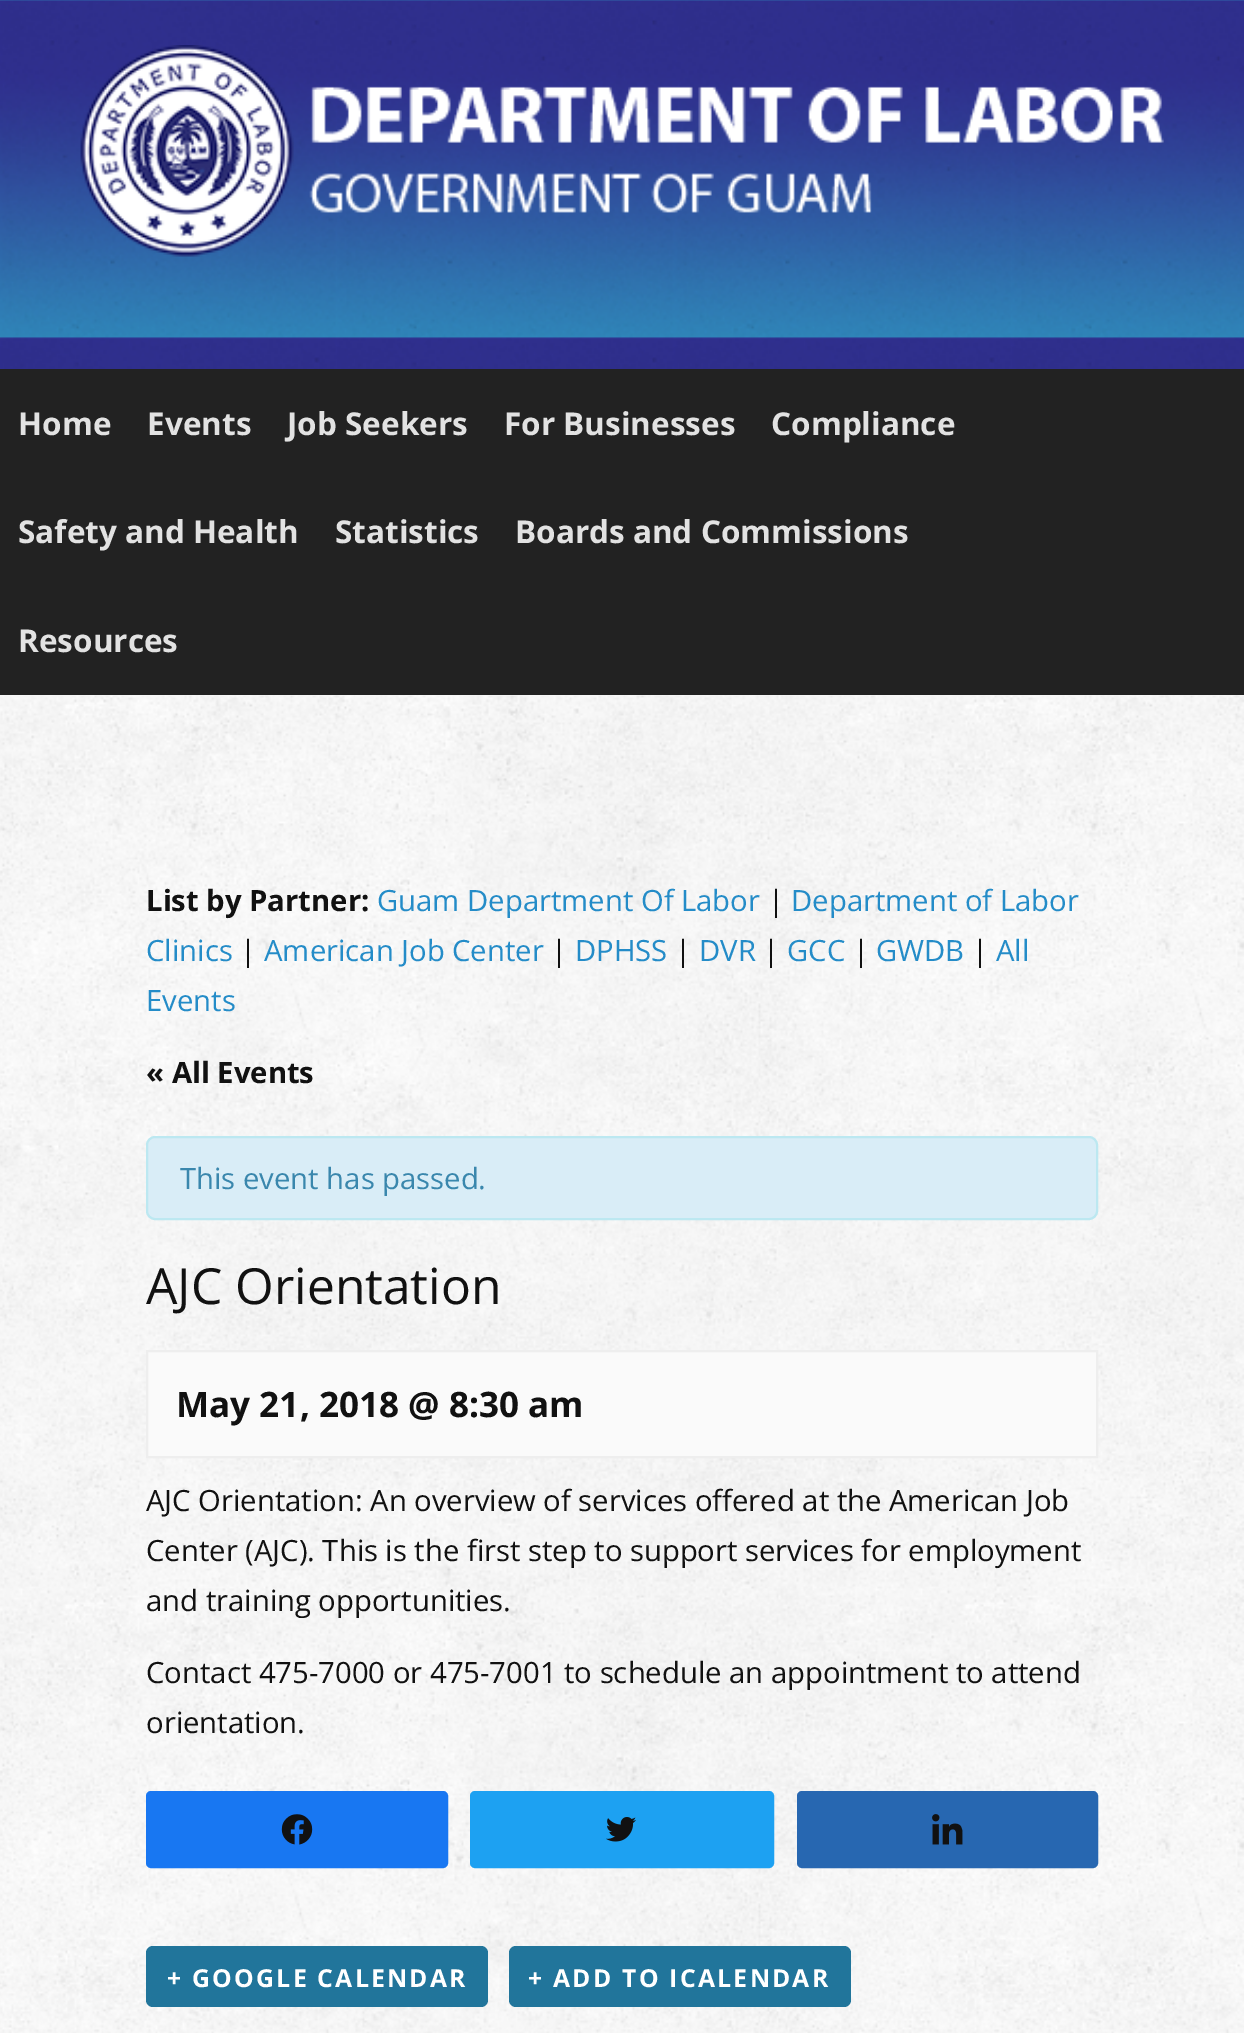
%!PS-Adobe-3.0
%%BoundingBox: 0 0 1244 2033
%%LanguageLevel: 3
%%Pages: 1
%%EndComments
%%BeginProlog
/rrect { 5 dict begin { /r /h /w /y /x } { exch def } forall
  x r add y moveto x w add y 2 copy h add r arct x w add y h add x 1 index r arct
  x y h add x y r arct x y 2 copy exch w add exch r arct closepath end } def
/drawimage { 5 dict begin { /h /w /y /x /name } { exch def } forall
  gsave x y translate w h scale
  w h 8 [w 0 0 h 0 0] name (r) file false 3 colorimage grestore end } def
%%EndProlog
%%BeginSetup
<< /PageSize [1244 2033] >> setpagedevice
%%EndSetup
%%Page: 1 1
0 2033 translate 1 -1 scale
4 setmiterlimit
1 setgray
0 0 1244 2033 rectfill
(images/1.raw) 0 0 1244 696 drawimage
(images/2.raw) 80 45 1084 212 drawimage
0.133 setgray
0 369 1244 326 rectfill
(images/3.raw) 0 695 1244 1338 drawimage
0.851 0.929 0.969 setrgbcolor
147 1137 950 82 8 rrect gsave fill grestore
0.737 0.91 0.945 setrgbcolor
2 setlinewidth
stroke
0.98 setgray
newpath 147 1351 moveto 1097 1351 lineto 1097 1457 lineto 147 1457 lineto closepath gsave fill grestore
0.933 setgray
stroke
0.094 0.467 0.949 setrgbcolor
147 1792 300 75 4 rrect gsave fill grestore
stroke
(images/4.raw) 281 1814 32 31 drawimage
0.114 0.631 0.949 setrgbcolor
471 1792 302 75 4 rrect gsave fill grestore
stroke
(images/5.raw) 606 1817 30 25 drawimage
0.153 0.404 0.694 setrgbcolor
798 1792 299 75 4 rrect gsave fill grestore
stroke
(images/6.raw) 932 1814 31 31 drawimage
0.129 0.459 0.608 setrgbcolor
146 1946 342 61 7 rrect fill
509 1946 342 61 7 rrect fill
/OpenSans-Bold [31.5 0 0 -31.5 0 0] selectfont
0.886 setgray
18 435 moveto (Home) show
147 435 moveto (Events) show
287 435 moveto (Job Seekers) show
504 435 moveto (For Businesses) show
771 435 moveto (Compliance) show
18 543 moveto (Safety and Health) show
335 543 moveto (Statistics) show
515 543 moveto (Boards and Commissions) show
18 652 moveto (Resources) show
/OpenSans-Bold [29.25 0 0 -29.25 0 0] selectfont
0.067 setgray
146 911 moveto (List by Partner:) show
/OpenSans-Regular [29.25 0 0 -29.25 0 0] selectfont
0.141 0.549 0.784 setrgbcolor
377 911 moveto (Guam Department Of Labor) show
0.067 setgray
768 911 moveto (|) show
0.141 0.549 0.784 setrgbcolor
791 911 moveto (Department of Labor) show
146 961 moveto (Clinics) show
0.067 setgray
240 961 moveto (|) show
0.141 0.549 0.784 setrgbcolor
264 961 moveto (American Job Center) show
0.067 setgray
551 961 moveto (|) show
0.141 0.549 0.784 setrgbcolor
575 961 moveto (DPHSS) show
0.067 setgray
675 961 moveto (|) show
0.141 0.549 0.784 setrgbcolor
699 961 moveto (DVR) show
0.067 setgray
763 961 moveto (|) show
0.141 0.549 0.784 setrgbcolor
787 961 moveto (GCC) show
0.067 setgray
853 961 moveto (|) show
0.141 0.549 0.784 setrgbcolor
876 961 moveto (GWDB) show
0.067 setgray
972 961 moveto (|) show
0.141 0.549 0.784 setrgbcolor
996 961 moveto (All) show
146 1011 moveto (Events) show
/OpenSans-Bold [29.25 0 0 -29.25 0 0] selectfont
0.067 setgray
146 1083 moveto (« All Events) show
/OpenSans-Regular [29.25 0 0 -29.25 0 0] selectfont
0.227 0.529 0.678 setrgbcolor
180 1189 moveto (This event has passed.) show
/OpenSans-Regular [49.75 0 0 -49.75 0 0] selectfont
0.067 setgray
146 1304 moveto (AJC Orientation) show
/OpenSans-Bold [35.1 0 0 -35.1 0 0] selectfont
176 1417 moveto (May 21, 2018 @ 8:30 am) show
/OpenSans-Regular [29.25 0 0 -29.25 0 0] selectfont
146 1511 moveto (AJC Orientation: An overview of services offered at the American Job) show
146 1561 moveto (Center \(AJC\). This is the first step to support services for employment) show
146 1611 moveto (and training opportunities.) show
146 1683 moveto (Contact 475-7000 or 475-7001 to schedule an appointment to attend) show
146 1733 moveto (orientation.) show
/OpenSans-Bold [24.75 0 0 -24.75 0 0] selectfont
1 setgray
167 1987 moveto 2.25 0 (+ GOOGLE CALENDAR) ashow
528 1987 moveto 2.25 0 (+ ADD TO ICALENDAR) ashow
showpage
%%EOF
